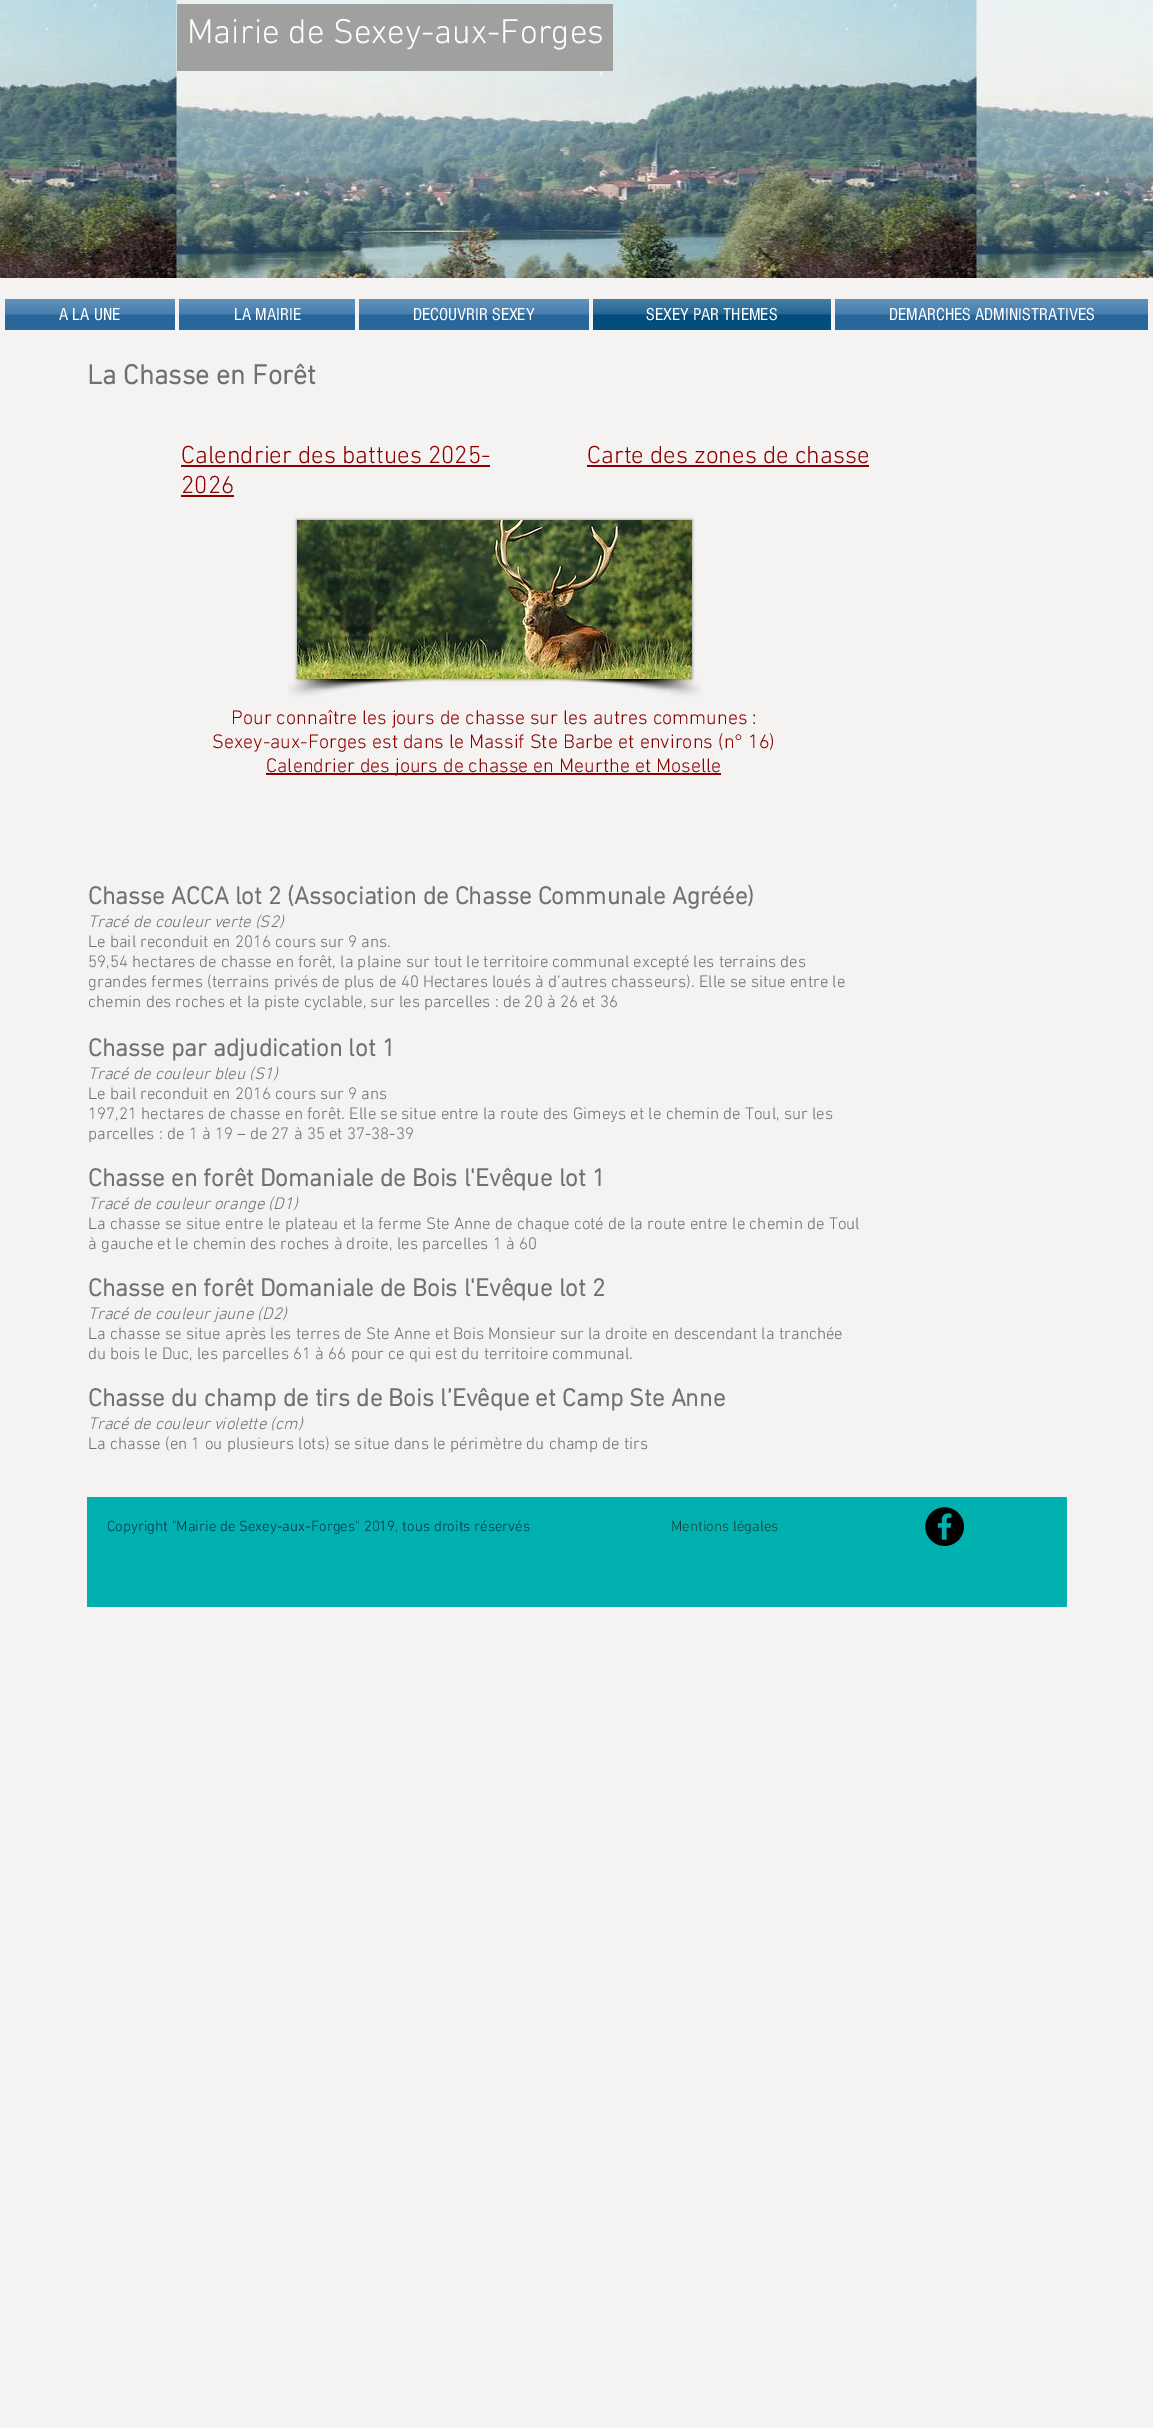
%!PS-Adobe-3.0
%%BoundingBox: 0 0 1153 2428
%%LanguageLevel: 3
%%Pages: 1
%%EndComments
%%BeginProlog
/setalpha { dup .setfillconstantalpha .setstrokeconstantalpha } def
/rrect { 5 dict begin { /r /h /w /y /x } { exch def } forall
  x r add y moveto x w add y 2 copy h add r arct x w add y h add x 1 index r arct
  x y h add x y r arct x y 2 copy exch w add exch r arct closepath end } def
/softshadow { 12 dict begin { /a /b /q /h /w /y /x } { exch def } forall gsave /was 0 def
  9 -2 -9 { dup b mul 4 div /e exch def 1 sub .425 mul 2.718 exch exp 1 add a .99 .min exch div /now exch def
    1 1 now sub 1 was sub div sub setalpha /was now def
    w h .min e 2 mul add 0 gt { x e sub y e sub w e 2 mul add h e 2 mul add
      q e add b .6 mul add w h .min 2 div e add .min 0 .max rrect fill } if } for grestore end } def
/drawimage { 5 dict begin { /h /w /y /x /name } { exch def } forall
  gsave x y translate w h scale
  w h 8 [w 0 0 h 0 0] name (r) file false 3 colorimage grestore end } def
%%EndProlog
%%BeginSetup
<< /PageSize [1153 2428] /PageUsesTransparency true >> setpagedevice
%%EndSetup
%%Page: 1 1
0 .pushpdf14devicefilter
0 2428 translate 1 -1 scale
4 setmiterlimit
0.961 0.949 0.949 setrgbcolor
0 0 1153 2428 rectfill
(images/1.raw) 0 0 1153 278 drawimage
0.627 0.627 0.624 setrgbcolor
177 4 436 67 rectfill
0.169 0.424 0.639 setrgbcolor
5 299 170 31 rectfill
(images/2.raw) 5 299 170 31 drawimage
179 299 176 31 rectfill
(images/3.raw) 179 299 176 31 drawimage
359 299 230 31 rectfill
(images/4.raw) 359 299 230 31 drawimage
0.016 0.318 0.518 setrgbcolor
593 299 238 31 rectfill
(images/5.raw) 593 299 238 31 drawimage
0.169 0.424 0.639 setrgbcolor
835 299 313 31 rectfill
(images/6.raw) 835 299 313 31 drawimage
0.545 0 0 setrgbcolor
181 465 309 2 rectfill
181 495 53 2 rectfill
587 465 282 2 rectfill
0 setgray
297 520 395 159 0 1.5 0.5 softshadow
(images/7.raw) 297 520 395 159 drawimage
(images/8.raw) 288 679 154 18 drawimage
(images/9.raw) 547 679 154 18 drawimage
0.545 0 0 setrgbcolor
266 773 455 2 rectfill
0.004 0.694 0.686 setrgbcolor
87 1497 980 110 rectfill
(images/10.raw) 925 1507 39 39 drawimage
/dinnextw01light-Light [35 0 0 -35 0 0] selectfont
1 setgray
187 43 moveto (Mairie de Sexey-aux-Forges) show
/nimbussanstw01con-Regular [18 0 0 -18 0 0] selectfont
59 320 moveto (A LA UNE) show
234 320 moveto (LA MAIRIE) show
413 320 moveto (DECOUVRIR SEXEY) show
646 320 moveto (SEXEY PAR THEMES) show
889 320 moveto (DEMARCHES ADMINISTRATIVES) show
/dinnextw01light-Bold [28 0 0 -28 0 0] selectfont
0.439 setgray
87 384 moveto (La Chasse en Forêt) show
/dinnextw01light-Light [25 0 0 -25 0 0] selectfont
0.545 0 0 setrgbcolor
181 463 moveto (Calendrier des battues 2025-) show
181 493 moveto (2026) show
587 463 moveto (Carte des zones de chasse) show
/dinnextw01light-Light [20 0 0 -20 0 0] selectfont
231 724 moveto (Pour connaître les jours de chasse sur les autres communes :) show
212 748 moveto (Sexey-aux-Forges est dans le Massif Ste Barbe et environs \(n° 16\)) show
266 772 moveto (Calendrier des jours de chasse en Meurthe et Moselle) show
/dinnextw01light-Bold [25 0 0 -25 0 0] selectfont
0.439 setgray
88 904 moveto (Chasse ACCA lot 2 \(Association de Chasse Communale Agréée\)) show
/dinnextw01light-LightItalic [17 0 0 -17 0 0] selectfont
88 927 moveto (Tracé de couleur verte \(S2\)) show
/dinnextw01light-Light [17 0 0 -17 0 0] selectfont
88 947 moveto (Le bail reconduit en 2016 cours sur 9 ans.) show
88 967 moveto (59,54 hectares de chasse en forêt, la plaine sur tout le territoire communal excepté les terrains des) show
88 987 moveto (grandes fermes \(terrains privés de plus de 40 Hectares loués à d’autres chasseurs\). Elle se situe entre le) show
88 1007 moveto (chemin des roches et la piste cyclable, sur les parcelles : de 20 à 26 et 36) show
/dinnextw01light-Bold [25 0 0 -25 0 0] selectfont
88 1056 moveto (Chasse par adjudication lot 1) show
/dinnextw01light-LightItalic [17 0 0 -17 0 0] selectfont
88 1079 moveto (Tracé de couleur bleu \(S1\)) show
/dinnextw01light-Light [17 0 0 -17 0 0] selectfont
88 1099 moveto (Le bail reconduit en 2016 cours sur 9 ans) show
88 1119 moveto (197,21 hectares de chasse en forêt. Elle se situe entre la route des Gimeys et le chemin de Toul, sur les) show
88 1139 moveto (parcelles : de 1 à 19 – de 27 à 35 et 37-38-39) show
/dinnextw01light-Bold [25 0 0 -25 0 0] selectfont
88 1186 moveto (Chasse en forêt Domaniale de Bois l'Evêque lot 1) show
/dinnextw01light-LightItalic [17 0 0 -17 0 0] selectfont
88 1209 moveto (Tracé de couleur orange \(D1\)) show
/dinnextw01light-Light [17 0 0 -17 0 0] selectfont
88 1229 moveto (La chasse se situe entre le plateau et la ferme Ste Anne de chaque coté de la route entre le chemin de Toul) show
88 1249 moveto (à gauche et le chemin des roches à droite, les parcelles 1 à 60) show
/dinnextw01light-Bold [25 0 0 -25 0 0] selectfont
88 1296 moveto (Chasse en forêt Domaniale de Bois l'Evêque lot 2) show
/dinnextw01light-LightItalic [17 0 0 -17 0 0] selectfont
88 1319 moveto (Tracé de couleur jaune \(D2\)) show
/dinnextw01light-Light [17 0 0 -17 0 0] selectfont
88 1339 moveto (La chasse se situe après les terres de Ste Anne et Bois Monsieur sur la droite en descendant la tranchée) show
88 1359 moveto (du bois le Duc, les parcelles 61 à 66 pour ce qui est du territoire communal.) show
/dinnextw01light-Bold [25 0 0 -25 0 0] selectfont
88 1406 moveto (Chasse du champ de tirs de Bois l’Evêque et Camp Ste Anne) show
/dinnextw01light-LightItalic [17 0 0 -17 0 0] selectfont
88 1429 moveto (Tracé de couleur violette \(cm\)) show
/dinnextw01light-Light [17 0 0 -17 0 0] selectfont
88 1449 moveto (La chasse \(en 1 ou plusieurs lots\) se situe dans le périmètre du champ de tirs) show
/dinnextw01light-Light [15 0 0 -15 0 0] selectfont
0 0.196 0.329 setrgbcolor
107 1531 moveto (Copyright "Mairie de Sexey-aux-Forges" 2019, tous droits réservés) show
0.086 0.243 0.227 setrgbcolor
671 1531 moveto (Mentions légales) show
.poppdf14devicefilter showpage
%%EOF
